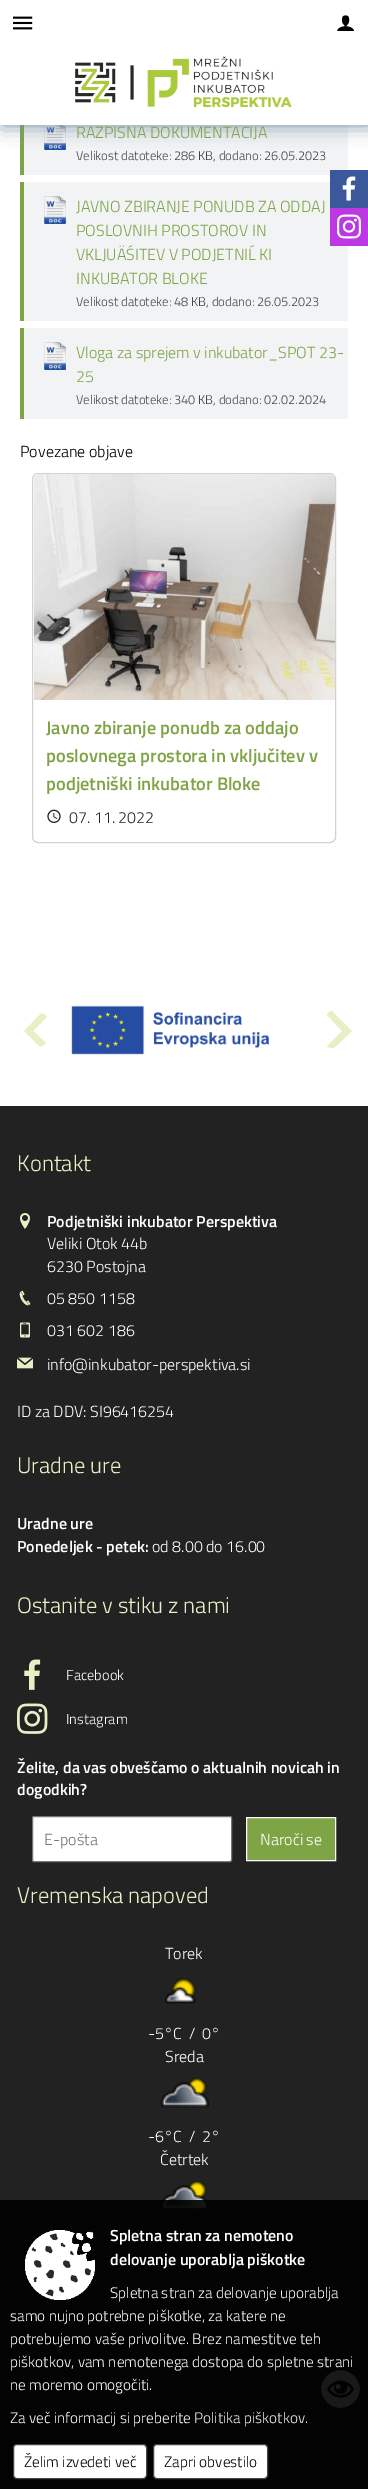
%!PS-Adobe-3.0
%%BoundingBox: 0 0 368 2489
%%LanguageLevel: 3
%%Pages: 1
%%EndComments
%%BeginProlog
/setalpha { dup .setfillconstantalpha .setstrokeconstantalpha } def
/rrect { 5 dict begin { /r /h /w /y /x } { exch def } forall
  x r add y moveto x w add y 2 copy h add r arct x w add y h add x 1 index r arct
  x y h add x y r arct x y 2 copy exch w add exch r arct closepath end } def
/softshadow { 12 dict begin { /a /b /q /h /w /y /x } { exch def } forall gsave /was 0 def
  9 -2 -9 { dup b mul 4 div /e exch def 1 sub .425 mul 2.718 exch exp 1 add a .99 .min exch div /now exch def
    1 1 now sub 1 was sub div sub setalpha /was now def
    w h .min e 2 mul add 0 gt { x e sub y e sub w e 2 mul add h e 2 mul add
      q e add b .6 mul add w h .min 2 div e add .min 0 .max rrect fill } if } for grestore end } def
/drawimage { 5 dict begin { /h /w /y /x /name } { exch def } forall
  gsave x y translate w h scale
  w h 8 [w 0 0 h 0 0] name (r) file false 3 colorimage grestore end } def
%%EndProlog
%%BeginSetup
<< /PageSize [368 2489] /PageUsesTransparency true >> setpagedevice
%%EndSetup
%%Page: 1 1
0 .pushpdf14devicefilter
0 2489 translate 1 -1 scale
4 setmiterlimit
1 setgray
0 0 368 2489 rectfill
0.949 0.953 0.961 setrgbcolor
24 125 324 50 rectfill
0.498 0.643 0.275 setrgbcolor
20 125 4 50 rectfill
(images/4.raw) 44 125 22 25 drawimage
0.443 0.537 0.624 setrgbcolor
2 0 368 125 0 10 1 softshadow
1 setgray
0 0 368 125 rectfill
(images/1.raw) 75 56 217 52 drawimage
(images/2.raw) 13 16 20 14 drawimage
(images/3.raw) 337 15 17 16 drawimage
0.949 0.953 0.961 setrgbcolor
24 182 324 139 rectfill
0.498 0.643 0.275 setrgbcolor
20 182 4 139 rectfill
(images/5.raw) 44 196 22 28 drawimage
0.949 0.953 0.961 setrgbcolor
24 328 324 91 rectfill
0.498 0.643 0.275 setrgbcolor
20 328 4 91 rectfill
(images/5.raw) 44 342 22 28 drawimage
0.824 setgray
32.5 473.5 303 369 5.5 rrect stroke
(images/6.raw) 34 474 301 226 drawimage
(images/7.raw) 47 809 14 14 drawimage
0.231 0.345 0.608 setrgbcolor
330 170 38 38 rectfill
(images/8.raw) 342 176 14 25 drawimage
0.737 0.22 0.886 setrgbcolor
330 208 38 38 rectfill
(images/9.raw) 337 214 24 25 drawimage
0.133 setgray
0 1106 368 1383 rectfill
1 setgray
320.5 2369.5 40 39 19.5 rrect gsave fill grestore
0.067 setgray
stroke
(images/10.raw) 327 2380 28 18 drawimage
0.906 0.941 0.773 setrgbcolor
newpath 47 1017 moveto 33 1031 lineto 46 1043 lineto 44 1045 42 1046 40 1047 curveto 24 1031 lineto 41.5 1013 lineto 43.5 1014 45.5 1015 47 1017 curveto closepath fill
(images/11.raw) 71 1005 198 50 drawimage
newpath 327 1046 moveto 328.5 1048 332 1048 334 1048 curveto 352 1031 lineto 332 1011 lineto 329.5 1011.5 lineto 327 1015 lineto 342 1031 lineto closepath fill
(images/12.raw) 20 1213 10 16 drawimage
(images/13.raw) 19 1290 12 16 drawimage
(images/14.raw) 20 1322 10 16 drawimage
(images/15.raw) 17 1357 16 12 drawimage
(images/16.raw) 24 1659 17 31 drawimage
(images/17.raw) 17 1703 31 31 drawimage
1 setgray
32.5 1816.5 199 45 1.5 rrect gsave fill grestore
0.463 setgray
stroke
0.498 0.643 0.275 setrgbcolor
newpath 246.5 1817.5 moveto 335.5 1817.5 lineto 335.5 1860.5 lineto 246.5 1860.5 lineto closepath gsave fill grestore
1 setgray
stroke
(images/18.raw) 165 1978 32 26 drawimage
(images/19.raw) 160 2077 49 31 drawimage
(images/19.raw) 160 2180 49 31 drawimage
0.9 setalpha
0 setgray
0 2200 368 289 rectfill
1 setalpha
(images/20.raw) 25 2230 70 70 drawimage
1 setgray
13.5 2444.5 133 34 3.5 rrect gsave fill grestore
0.267 setgray
stroke
1 setgray
153.5 2444.5 114 34 3.5 rrect gsave fill grestore
0.267 setgray
stroke
/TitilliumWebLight-Light [16 0 0 -16 0 0] selectfont
0.498 0.643 0.275 setrgbcolor
76 138 moveto (RAZPISNA DOKUMENTACIJA) show
/TitilliumWebLight-Light [12.75 0 0 -12.75 0 0] selectfont
0.267 setgray
76 160 moveto (Velikost datoteke: 286 KB, dodano: 26.05.2023) show
/TitilliumWebLight-Light [16 0 0 -16 0 0] selectfont
0.498 0.643 0.275 setrgbcolor
76 212 moveto (JAVNO ZBIRANJE PONUDB ZA ODDAJ) show
76 236 moveto (POSLOVNIH PROSTOROV IN) show
76 260 moveto (VKLJUÄŚITEV V PODJETNIĹ KI) show
76 284 moveto (INKUBATOR BLOKE) show
/TitilliumWebLight-Light [12.75 0 0 -12.75 0 0] selectfont
0.267 setgray
76 306 moveto (Velikost datoteke: 48 KB, dodano: 26.05.2023) show
/TitilliumWebLight-Light [16 0 0 -16 0 0] selectfont
0.498 0.643 0.275 setrgbcolor
76 358 moveto (Vloga za sprejem v inkubator_SPOT 23-) show
76 382 moveto (25) show
/TitilliumWebLight-Light [12.75 0 0 -12.75 0 0] selectfont
0.267 setgray
76 404 moveto (Velikost datoteke: 340 KB, dodano: 02.02.2024) show
/TitilliumWebLight-Light [16 0 0 -16 0 0] selectfont
0 setgray
20 457 moveto (Povezane objave) show
/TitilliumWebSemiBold-SemiBold [18.4 0 0 -18.4 0 0] selectfont
0.498 0.643 0.275 setrgbcolor
46 734 moveto (Javno zbiranje ponudb za oddajo) show
46 762 moveto (poslovnega prostora in vključitev v) show
46 790 moveto (podjetniški inkubator Bloke) show
/TitilliumWebLight-Light [16 0 0 -16 0 0] selectfont
0.129 0.145 0.161 setrgbcolor
69 823 moveto (07. 11. 2022) show
/TitilliumWebLight-Light [22.5 0 0 -22.5 0 0] selectfont
0.906 0.941 0.773 setrgbcolor
17 1171 moveto (Kontakt) show
/TitilliumWebSemiBold-SemiBold [16 0 0 -16 0 0] selectfont
1 setgray
47 1227 moveto (Podjetniški inkubator Perspektiva) show
/TitilliumWebLight-Light [16 0 0 -16 0 0] selectfont
47 1249 moveto (Veliki Otok 44b) show
47 1272 moveto (6230 Postojna) show
47 1304 moveto (05 850 1158) show
47 1336 moveto (031 602 186) show
47 1370 moveto (info@inkubator-perspektiva.si) show
17 1417 moveto (ID za DDV: SI96416254) show
/TitilliumWebLight-Light [22.5 0 0 -22.5 0 0] selectfont
0.906 0.941 0.773 setrgbcolor
17 1473 moveto (Uradne ure) show
/TitilliumWebSemiBold-SemiBold [16 0 0 -16 0 0] selectfont
1 setgray
17 1529 moveto (Uradne ure) show
17 1552 moveto (Ponedeljek - petek:) show
/TitilliumWebLight-Light [16 0 0 -16 0 0] selectfont
152 1552 moveto (od 8.00 do 16.00) show
/TitilliumWebLight-Light [22.5 0 0 -22.5 0 0] selectfont
0.906 0.941 0.773 setrgbcolor
17 1613 moveto (Ostanite v stiku z nami) show
/TitilliumWebLight-Light [14.5 0 0 -14.5 0 0] selectfont
1 setgray
66 1680 moveto (Facebook) show
66 1724 moveto (Instagram) show
/TitilliumWebSemiBold-SemiBold [16 0 0 -16 0 0] selectfont
17 1773 moveto (Želite, da vas obveščamo o aktualnih novicah in) show
17 1795 moveto (dogodkih?) show
/TitilliumWebLight-Light [16 0 0 -16 0 0] selectfont
0.459 setgray
44 1845 moveto (E-pošta) show
1 setgray
260 1845 moveto (Naroči se) show
/TitilliumWebLight-Light [22.5 0 0 -22.5 0 0] selectfont
0.906 0.941 0.773 setrgbcolor
17 1903 moveto (Vremenska napoved) show
/TitilliumWebLight-Light [16 0 0 -16 0 0] selectfont
1 setgray
165 1959 moveto (Torek) show
148 2039 moveto (-5°C  /  0°) show
165 2062 moveto (Sreda) show
148 2142 moveto (-6°C  /  2°) show
160 2165 moveto (Četrtek) show
/TitilliumWebSemiBold-SemiBold [16 0 0 -16 0 0] selectfont
110 2241 moveto (Spletna stran za nemoteno) show
110 2265 moveto (delovanje uporablja piškotke) show
/TitilliumWebLight-Light [15.2 0 0 -15.2 0 0] selectfont
110 2298 moveto (Spletna stran za delovanje uporablja) show
10 2321 moveto (samo nujno potrebne piškotke, za katere ne) show
10 2344 moveto (potrebujemo vaše privolitve. Brez namestitve teh) show
10 2367 moveto (piškotkov, vam nemotenega dostopa do spletne strani) show
10 2390 moveto (ne moremo omogočiti.) show
10 2423 moveto (Za več informacij si preberite) show
0.933 setgray
194 2423 moveto (Politika piškotkov) show
1 setgray
305 2423 moveto (.) show
0 setgray
24 2467 moveto (Želim izvedeti več) show
164 2467 moveto (Zapri obvestilo) show
.poppdf14devicefilter showpage
%%EOF
